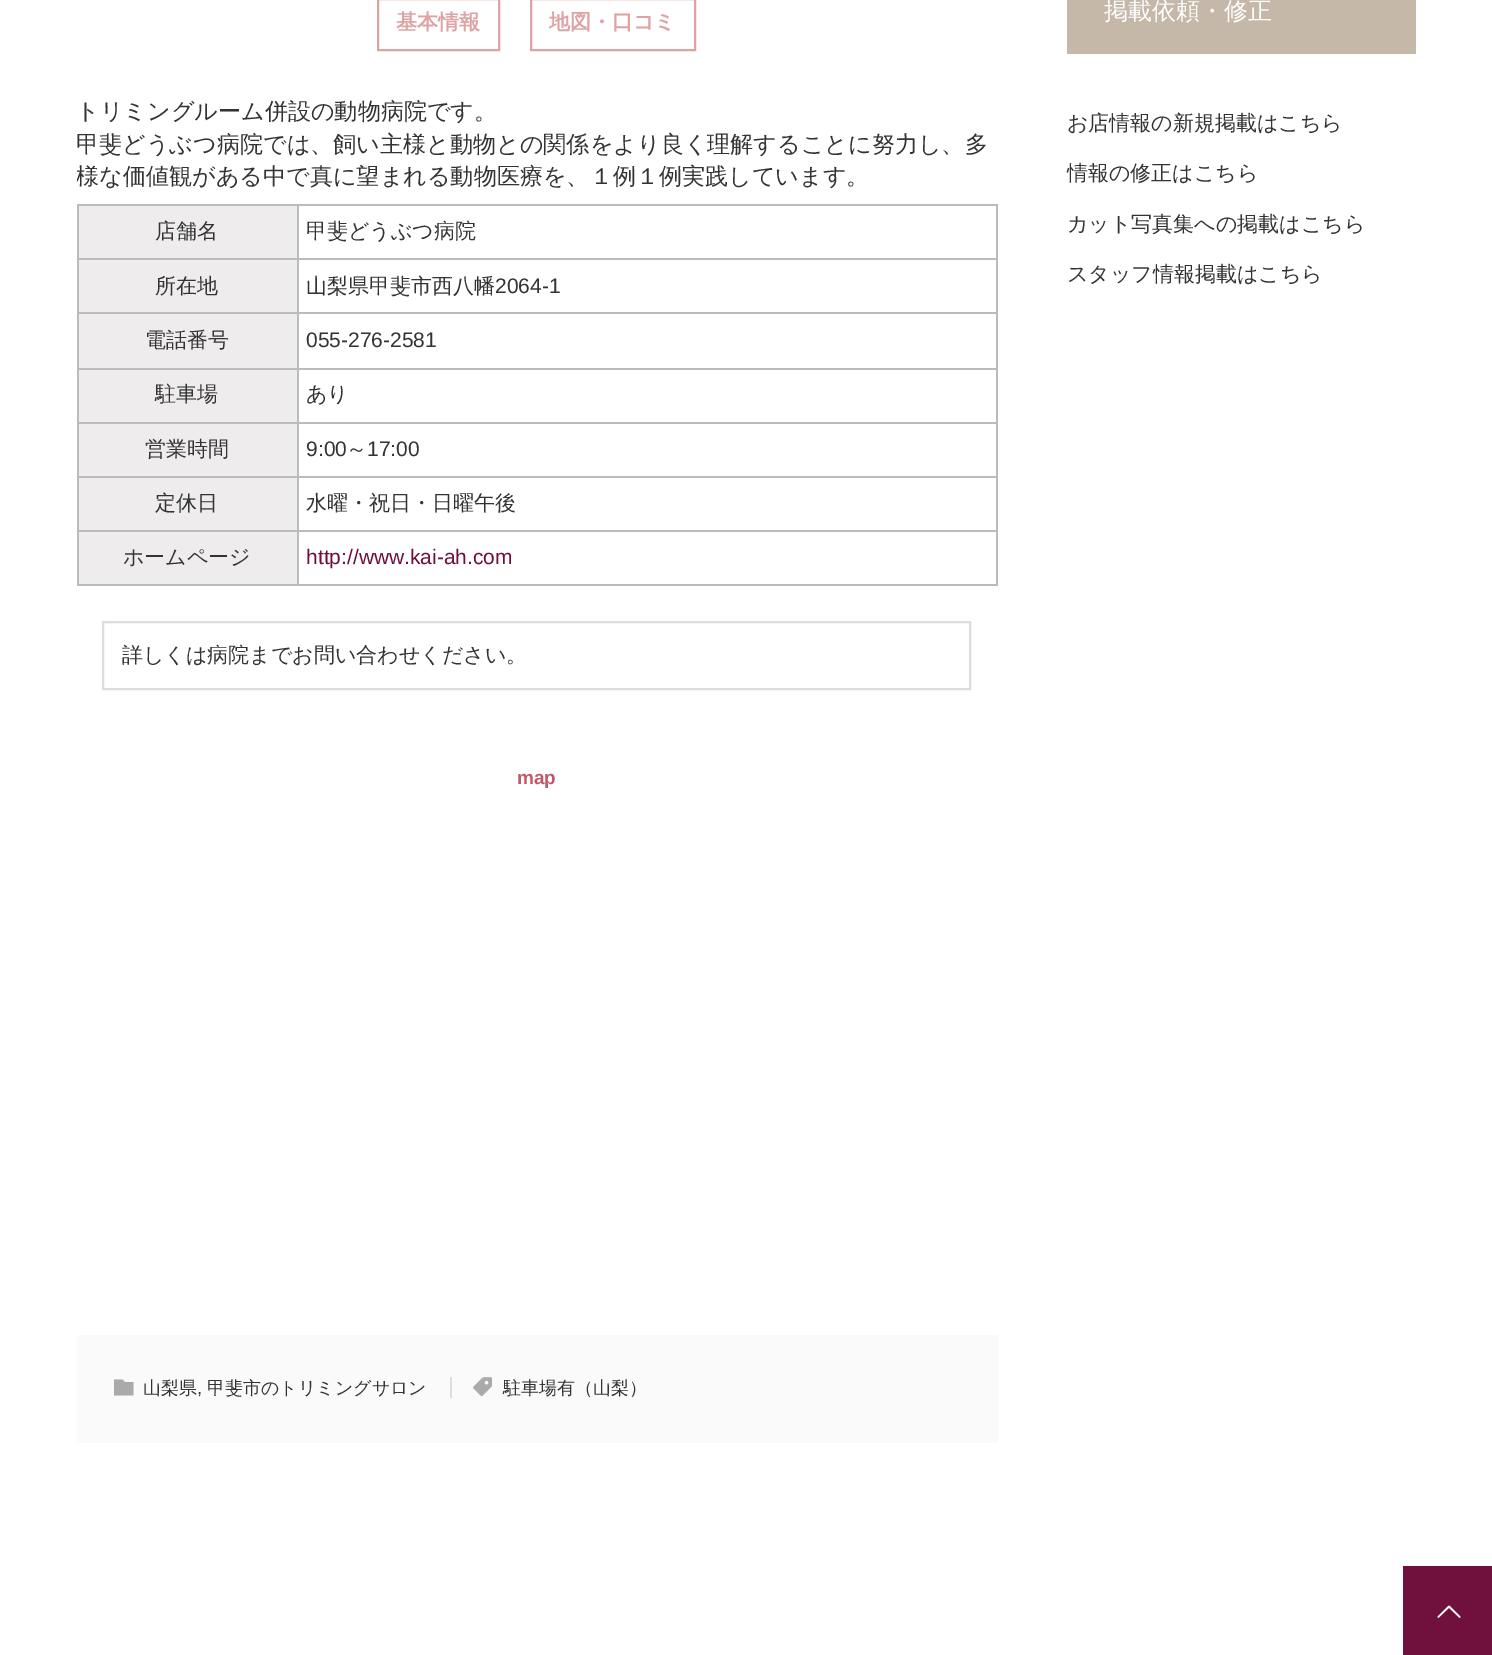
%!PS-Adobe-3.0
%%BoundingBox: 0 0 1492 1655
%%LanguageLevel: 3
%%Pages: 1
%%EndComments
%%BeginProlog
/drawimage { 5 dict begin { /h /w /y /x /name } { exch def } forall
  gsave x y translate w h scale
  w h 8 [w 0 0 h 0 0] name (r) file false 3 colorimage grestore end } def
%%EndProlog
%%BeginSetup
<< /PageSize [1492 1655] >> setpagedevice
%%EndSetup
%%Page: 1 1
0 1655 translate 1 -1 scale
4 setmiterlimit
1 setgray
0 0 1492 1655 rectfill
0.871 0.635 0.639 setrgbcolor
2 setlinewidth
378 -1 121 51 rectstroke
531 -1 164 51 rectstroke
0.933 0.925 0.925 setrgbcolor
79 206 218 52 rectfill
0.733 setgray
297 204 701 2 rectfill
297 258 701 2 rectfill
297 312 701 2 rectfill
297 368 701 2 rectfill
297 422 701 2 rectfill
297 476 701 2 rectfill
297 530 701 2 rectfill
996 530 2 55 rectfill
297 584 701 2 rectfill
297 530 2 55 rectfill
77 530 222 2 rectfill
297 476 2 55 rectfill
77 476 222 2 rectfill
297 422 2 55 rectfill
77 422 222 2 rectfill
297 368 2 55 rectfill
77 368 222 2 rectfill
297 312 2 57 rectfill
77 312 222 2 rectfill
297 258 2 56 rectfill
77 258 222 2 rectfill
297 204 2 56 rectfill
77 204 222 2 rectfill
77 584 222 2 rectfill
77 530 2 55 rectfill
77 476 2 55 rectfill
77 422 2 55 rectfill
77 368 2 55 rectfill
77 312 2 57 rectfill
77 258 2 56 rectfill
77 204 2 56 rectfill
996 476 2 55 rectfill
996 422 2 55 rectfill
996 368 2 55 rectfill
996 312 2 57 rectfill
996 258 2 56 rectfill
996 204 2 56 rectfill
0.933 0.925 0.925 setrgbcolor
79 260 218 52 rectfill
79 314 218 54 rectfill
79 370 218 52 rectfill
79 424 218 52 rectfill
79 478 218 52 rectfill
79 532 218 52 rectfill
0.867 setgray
103 622 867 67 rectstroke
0.98 setgray
77 1335 921 108 rectfill
0.867 setgray
450 1377 2 21 rectfill
0.667 setgray
newpath 122.5 1379.5 moveto 125 1382 lineto 133.5 1382 lineto 133.5 1395.5 lineto 114 1395.5 lineto 114 1379.5 lineto closepath fill
(images/1.raw) 473 1377 19 20 drawimage
0.773 0.722 0.659 setrgbcolor
1067 0 349 54 rectfill
0.439 0.067 0.239 setrgbcolor
1403 1566 89 89 rectfill
(images/2.raw) 1437 1605 24 13 drawimage
/WenQuanYiZenHei-Bold [21 0 0 -21 0 0] selectfont
0.871 0.635 0.639 setrgbcolor
396 29 moveto (基本情報) show
549 29 moveto (地図・口コミ) show
/WenQuanYiZenHei-Medium [23.1 0 0 -23.1 0 0] selectfont
0.2 setgray
76 119 moveto (トリミングルーム併設の動物病院です。) show
76 152 moveto (甲斐どうぶつ病院では、飼い主様と動物との関係をより良く理解することに努力し、多) show
gsave
77 0 921 1335 rectclip
76 184 moveto (様な価値観がある中で真に望まれる動物医療を、１例１例実践しています。) show
grestore
/WenQuanYiZenHei-Medium [21 0 0 -21 0 0] selectfont
155 238 moveto (店舗名) show
306 238 moveto (甲斐どうぶつ病院) show
155 293 moveto (所在地) show
306 293 moveto (山梨県甲斐市西八幡) show
/LiberationSans-Regular [21 0 0 -21 0 0] selectfont
495 293 moveto (2064-1) show
/WenQuanYiZenHei-Medium [21 0 0 -21 0 0] selectfont
145 347 moveto (電話番号) show
/LiberationSans-Regular [21 0 0 -21 0 0] selectfont
306 347 moveto (055-276-2581) show
/WenQuanYiZenHei-Medium [21 0 0 -21 0 0] selectfont
155 401 moveto (駐車場) show
306 401 moveto (あり) show
145 456 moveto (営業時間) show
/LiberationSans-Regular [21 0 0 -21 0 0] selectfont
306 456 moveto (9:00) show
/WenQuanYiZenHei-Medium [21 0 0 -21 0 0] selectfont
346 456 moveto (～) show
/LiberationSans-Regular [21 0 0 -21 0 0] selectfont
367 456 moveto (17:00) show
/WenQuanYiZenHei-Medium [21 0 0 -21 0 0] selectfont
155 510 moveto (定休日) show
306 510 moveto (水曜・祝日・日曜午後) show
123 564 moveto (ホームページ) show
/LiberationSans-Regular [21 0 0 -21 0 0] selectfont
0.431 0.055 0.231 setrgbcolor
306 564 moveto (http://www.kai-ah.com) show
/WenQuanYiZenHei-Medium [21 0 0 -21 0 0] selectfont
0.2 setgray
122 662 moveto (詳しくは病院までお問い合わせください。) show
/LiberationSans-Bold [19 0 0 -19 0 0] selectfont
0.745 0.349 0.408 setrgbcolor
517 784 moveto (map) show
/WenQuanYiZenHei-Medium [18 0 0 -18 0 0] selectfont
0.2 setgray
143 1394 moveto (山梨県) show
/LiberationSans-Regular [18 0 0 -18 0 0] selectfont
197 1394 moveto (,) show
/WenQuanYiZenHei-Medium [18 0 0 -18 0 0] selectfont
207 1394 moveto (甲斐市のトリミングサロン) show
503 1394 moveto (駐車場有（山梨）) show
/WenQuanYiZenHei-Medium [24 0 0 -24 0 0] selectfont
1 setgray
1104 19 moveto (掲載依頼・修正) show
/WenQuanYiZenHei-Medium [21 0 0 -21 0 0] selectfont
0.2 setgray
1067 130 moveto (お店情報の新規掲載はこちら) show
1067 180 moveto (情報の修正はこちら) show
1067 231 moveto (カット写真集への掲載はこちら) show
1067 281 moveto (スタッフ情報掲載はこちら) show
showpage
%%EOF
